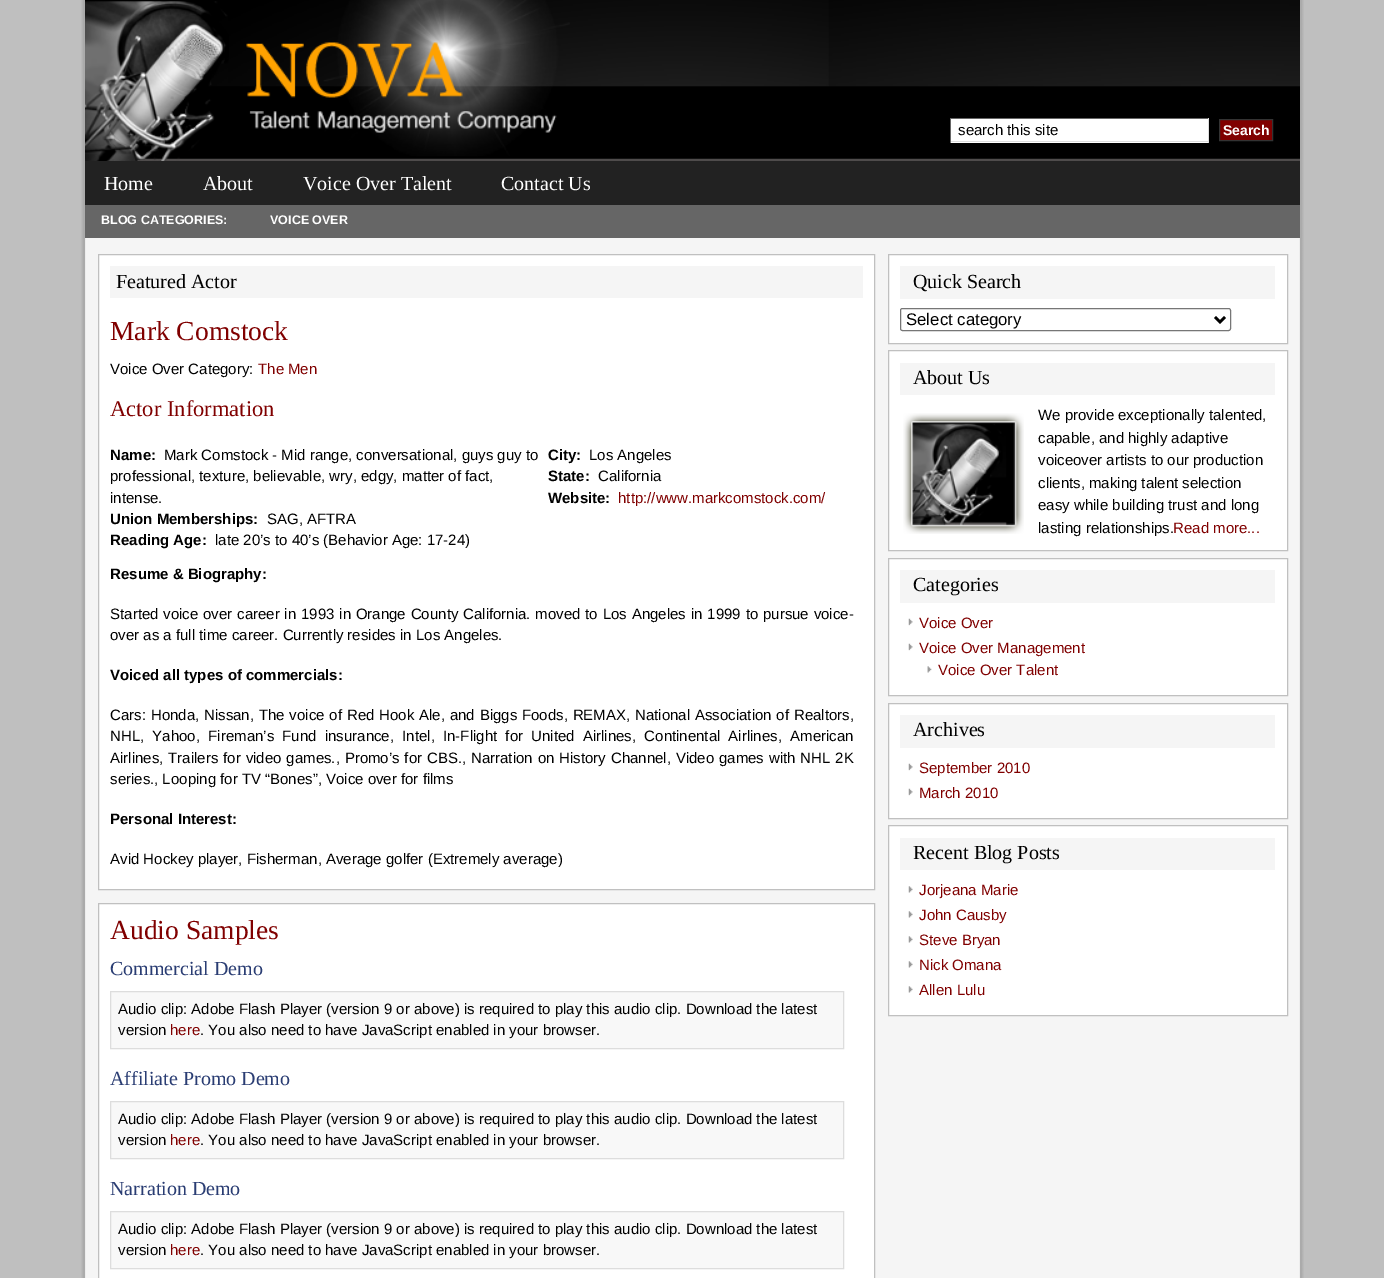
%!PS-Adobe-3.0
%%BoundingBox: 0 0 1384 1278
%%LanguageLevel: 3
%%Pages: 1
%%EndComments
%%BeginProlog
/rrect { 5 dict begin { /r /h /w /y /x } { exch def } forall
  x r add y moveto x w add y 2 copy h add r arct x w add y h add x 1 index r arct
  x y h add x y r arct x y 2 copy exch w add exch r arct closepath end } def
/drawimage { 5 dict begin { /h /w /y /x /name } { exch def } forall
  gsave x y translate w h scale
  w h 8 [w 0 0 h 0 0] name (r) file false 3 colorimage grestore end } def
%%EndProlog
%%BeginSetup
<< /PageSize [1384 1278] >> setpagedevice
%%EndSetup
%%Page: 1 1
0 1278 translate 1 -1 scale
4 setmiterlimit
0.749 setgray
0 0 1384 1278 rectfill
(images/1.raw) 81 0 1223 1278 drawimage
(images/2.raw) 85 0 1215 161 drawimage
1 setgray
951 119 257 24 rectfill
0.4 setgray
950 118 259 1 rectfill
0.867 setgray
1208 118 1 25 rectfill
950 141 259 1 rectfill
0.4 setgray
950 118 1 25 rectfill
0.502 0 0 setrgbcolor
newpath 1219.5 119.5 moveto 1272.5 119.5 lineto 1272.5 140.5 lineto 1219.5 140.5 lineto closepath gsave fill grestore
0.2 setgray
stroke
0.133 setgray
85 161 1215 44 rectfill
0.4 setgray
85 205 1215 33 rectfill
1 setgray
newpath 98.5 254.5 moveto 874.5 254.5 lineto 874.5 889.5 lineto 98.5 889.5 lineto closepath gsave fill grestore
0.753 setgray
stroke
0.961 setgray
110 266 753 32 rectfill
1 setgray
newpath 98.5 903.5 moveto 874.5 903.5 lineto 874.5 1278.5 lineto 98.5 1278.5 lineto closepath gsave fill grestore
0.753 setgray
stroke
0.973 setgray
newpath 110.5 991.5 moveto 843.5 991.5 lineto 843.5 1048.5 lineto 110.5 1048.5 lineto closepath gsave fill grestore
0.867 setgray
stroke
0.973 setgray
newpath 110.5 1101.5 moveto 843.5 1101.5 lineto 843.5 1158.5 lineto 110.5 1158.5 lineto closepath gsave fill grestore
0.867 setgray
stroke
0.973 setgray
newpath 110.5 1211.5 moveto 843.5 1211.5 lineto 843.5 1268.5 lineto 110.5 1268.5 lineto closepath gsave fill grestore
0.867 setgray
stroke
1 setgray
newpath 888.5 254.5 moveto 1287.5 254.5 lineto 1287.5 343.5 lineto 888.5 343.5 lineto closepath gsave fill grestore
0.753 setgray
stroke
0.961 setgray
900 266 375 33 rectfill
0.463 setgray
900.5 308.5 330 22 2 rrect stroke
0 setgray
2.5 setlinewidth
newpath 1215 317 moveto 1220 322 lineto 1225 317 lineto stroke
1 setgray
newpath 888.5 350.5 moveto 1287.5 350.5 lineto 1287.5 550.5 lineto 888.5 550.5 lineto closepath gsave fill grestore
0.753 setgray
1 setlinewidth
stroke
0.961 setgray
900 363 375 32 rectfill
(images/3.raw) 903 413 121 121 drawimage
1 setgray
newpath 888.5 558.5 moveto 1287.5 558.5 lineto 1287.5 695.5 lineto 888.5 695.5 lineto closepath gsave fill grestore
0.753 setgray
stroke
0.961 setgray
900 570 375 33 rectfill
(images/4.raw) 908 618 5 8 drawimage
(images/4.raw) 908 643 5 8 drawimage
(images/5.raw) 927 666 5 7 drawimage
1 setgray
newpath 888.5 703.5 moveto 1287.5 703.5 lineto 1287.5 818.5 lineto 888.5 818.5 lineto closepath gsave fill grestore
0.753 setgray
stroke
0.961 setgray
900 715 375 33 rectfill
(images/6.raw) 908 763 5 8 drawimage
(images/4.raw) 908 788 5 8 drawimage
1 setgray
newpath 888.5 825.5 moveto 1287.5 825.5 lineto 1287.5 1015.5 lineto 888.5 1015.5 lineto closepath gsave fill grestore
0.753 setgray
stroke
0.961 setgray
900 838 375 32 rectfill
(images/7.raw) 908 886 5 7 drawimage
(images/7.raw) 908 911 5 7 drawimage
(images/7.raw) 908 936 5 7 drawimage
(images/7.raw) 908 961 5 7 drawimage
(images/7.raw) 908 986 5 7 drawimage
/LiberationSans-Regular [15 0 0 -15 0 0] selectfont
0 setgray
958 135 moveto (search this site) show
/LiberationSans-Bold [14 0 0 -14 0 0] selectfont
1 setgray
1223 135 moveto (Search) show
/LiberationSerif-Regular [20 0 0 -20 0 0] selectfont
104 190 moveto (Home) show
203 190 moveto (About) show
303 190 moveto (Voice Over Talent) show
501 190 moveto (Contact Us) show
/LiberationSans-Bold [12.5 0 0 -12.5 0 0] selectfont
101 224 moveto (BLOG CATEGORIES:) show
270 224 moveto (VOICE OVER) show
/LiberationSerif-Regular [20 0 0 -20 0 0] selectfont
0 setgray
116 288 moveto (Featured Actor) show
/LiberationSerif-Regular [27.5 0 0 -27.5 0 0] selectfont
0.502 0 0 setrgbcolor
110 340 moveto (Mark Comstock) show
/LiberationSans-Regular [15 0 0 -15 0 0] selectfont
0 setgray
110 374 moveto (Voice Over Category:) show
0.502 0 0 setrgbcolor
258 374 moveto (The Men) show
/LiberationSerif-Regular [22.5 0 0 -22.5 0 0] selectfont
110 416 moveto (Actor Information) show
/LiberationSans-Bold [15 0 0 -15 0 0] selectfont
0 setgray
110 460 moveto (Name:) show
/LiberationSans-Regular [15 0 0 -15 0 0] selectfont
164 460 moveto (Mark Comstock - Mid range, conversational, guys guy to) show
110 481 moveto (professional, texture, believable, wry, edgy, matter of fact,) show
110 503 moveto (intense.) show
/LiberationSans-Bold [15 0 0 -15 0 0] selectfont
110 524 moveto (Union Memberships:) show
/LiberationSans-Regular [15 0 0 -15 0 0] selectfont
267 524 moveto (SAG, AFTRA) show
/LiberationSans-Bold [15 0 0 -15 0 0] selectfont
110 545 moveto (Reading Age:) show
/LiberationSans-Regular [15 0 0 -15 0 0] selectfont
215 545 moveto (late 20’s to 40’s \(Behavior Age: 17-24\)) show
/LiberationSans-Bold [15 0 0 -15 0 0] selectfont
548 460 moveto (City:) show
/LiberationSans-Regular [15 0 0 -15 0 0] selectfont
589 460 moveto (Los Angeles) show
/LiberationSans-Bold [15 0 0 -15 0 0] selectfont
548 481 moveto (State:) show
/LiberationSans-Regular [15 0 0 -15 0 0] selectfont
598 481 moveto (California) show
/LiberationSans-Bold [15 0 0 -15 0 0] selectfont
548 503 moveto (Website:) show
/LiberationSans-Regular [15 0 0 -15 0 0] selectfont
0.502 0 0 setrgbcolor
618 503 moveto (http://www.markcomstock.com/) show
/LiberationSans-Bold [15 0 0 -15 0 0] selectfont
0 setgray
110 579 moveto (Resume & Biography:) show
/LiberationSans-Regular [15 0 0 -15 0 0] selectfont
110 619 moveto 0.7 0 32 (Started voice over career in 1993 in Orange County California. moved to Los Angeles in 1999 to pursue voice-) widthshow
110 640 moveto (over as a full time career. Currently resides in Los Angeles.) show
/LiberationSans-Bold [15 0 0 -15 0 0] selectfont
110 680 moveto (Voiced all types of commercials:) show
/LiberationSans-Regular [15 0 0 -15 0 0] selectfont
110 720 moveto 0.7 0 32 (Cars: Honda, Nissan, The voice of Red Hook Ale, and Biggs Foods, REMAX, National Association of Realtors,) widthshow
110 741 moveto 4.1 0 32 (NHL, Yahoo, Fireman’s Fund insurance, Intel, In-Flight for United Airlines, Continental Airlines, American) widthshow
110 763 moveto 0.75 0 32 (Airlines, Trailers for video games., Promo’s for CBS., Narration on History Channel, Video games with NHL 2K) widthshow
110 784 moveto (series., Looping for TV “Bones”, Voice over for films) show
/LiberationSans-Bold [15 0 0 -15 0 0] selectfont
110 824 moveto (Personal Interest:) show
/LiberationSans-Regular [15 0 0 -15 0 0] selectfont
110 864 moveto (Avid Hockey player, Fisherman, Average golfer \(Extremely average\)) show
/LiberationSerif-Regular [27.5 0 0 -27.5 0 0] selectfont
0.502 0 0 setrgbcolor
110 939 moveto (Audio Samples) show
/LiberationSerif-Regular [20 0 0 -20 0 0] selectfont
0.165 0.239 0.451 setrgbcolor
110 975 moveto (Commercial Demo) show
/LiberationSans-Regular [15 0 0 -15 0 0] selectfont
0 setgray
118 1014 moveto (Audio clip: Adobe Flash Player \(version 9 or above\) is required to play this audio clip. Download the latest) show
118 1035 moveto (version) show
0.502 0 0 setrgbcolor
170 1035 moveto (here) show
0 setgray
200 1035 moveto (. You also need to have JavaScript enabled in your browser.) show
/LiberationSerif-Regular [20 0 0 -20 0 0] selectfont
0.165 0.239 0.451 setrgbcolor
110 1085 moveto (Affiliate Promo Demo) show
/LiberationSans-Regular [15 0 0 -15 0 0] selectfont
0 setgray
118 1124 moveto (Audio clip: Adobe Flash Player \(version 9 or above\) is required to play this audio clip. Download the latest) show
118 1145 moveto (version) show
0.502 0 0 setrgbcolor
170 1145 moveto (here) show
0 setgray
200 1145 moveto (. You also need to have JavaScript enabled in your browser.) show
/LiberationSerif-Regular [20 0 0 -20 0 0] selectfont
0.165 0.239 0.451 setrgbcolor
110 1195 moveto (Narration Demo) show
/LiberationSans-Regular [15 0 0 -15 0 0] selectfont
0 setgray
118 1234 moveto (Audio clip: Adobe Flash Player \(version 9 or above\) is required to play this audio clip. Download the latest) show
118 1255 moveto (version) show
0.502 0 0 setrgbcolor
170 1255 moveto (here) show
0 setgray
200 1255 moveto (. You also need to have JavaScript enabled in your browser.) show
/LiberationSerif-Regular [20 0 0 -20 0 0] selectfont
913 288 moveto (Quick Search) show
/LiberationSans-Regular [16.75 0 0 -16.75 0 0] selectfont
906 325 moveto (Select category) show
/LiberationSerif-Regular [20 0 0 -20 0 0] selectfont
913 384 moveto (About Us) show
/LiberationSans-Regular [15 0 0 -15 0 0] selectfont
1038 420 moveto (We provide exceptionally talented,) show
1038 443 moveto (capable, and highly adaptive) show
1038 465 moveto (voiceover artists to our production) show
1038 488 moveto (clients, making talent selection) show
1038 510 moveto (easy while building trust and long) show
1038 533 moveto (lasting relationships.) show
0.502 0 0 setrgbcolor
1173 533 moveto (Read more...) show
/LiberationSerif-Regular [20 0 0 -20 0 0] selectfont
0 setgray
913 591 moveto (Categories) show
/LiberationSans-Regular [15 0 0 -15 0 0] selectfont
0.502 0 0 setrgbcolor
919 628 moveto (Voice Over) show
919 653 moveto (Voice Over Management) show
938 675 moveto (Voice Over Talent) show
/LiberationSerif-Regular [20 0 0 -20 0 0] selectfont
0 setgray
913 736 moveto (Archives) show
/LiberationSans-Regular [15 0 0 -15 0 0] selectfont
0.502 0 0 setrgbcolor
919 773 moveto (September 2010) show
919 798 moveto (March 2010) show
/LiberationSerif-Regular [20 0 0 -20 0 0] selectfont
0 setgray
913 859 moveto (Recent Blog Posts) show
/LiberationSans-Regular [15 0 0 -15 0 0] selectfont
0.502 0 0 setrgbcolor
919 895 moveto (Jorjeana Marie) show
919 920 moveto (John Causby) show
919 945 moveto (Steve Bryan) show
919 970 moveto (Nick Omana) show
919 995 moveto (Allen Lulu) show
showpage
%%EOF
